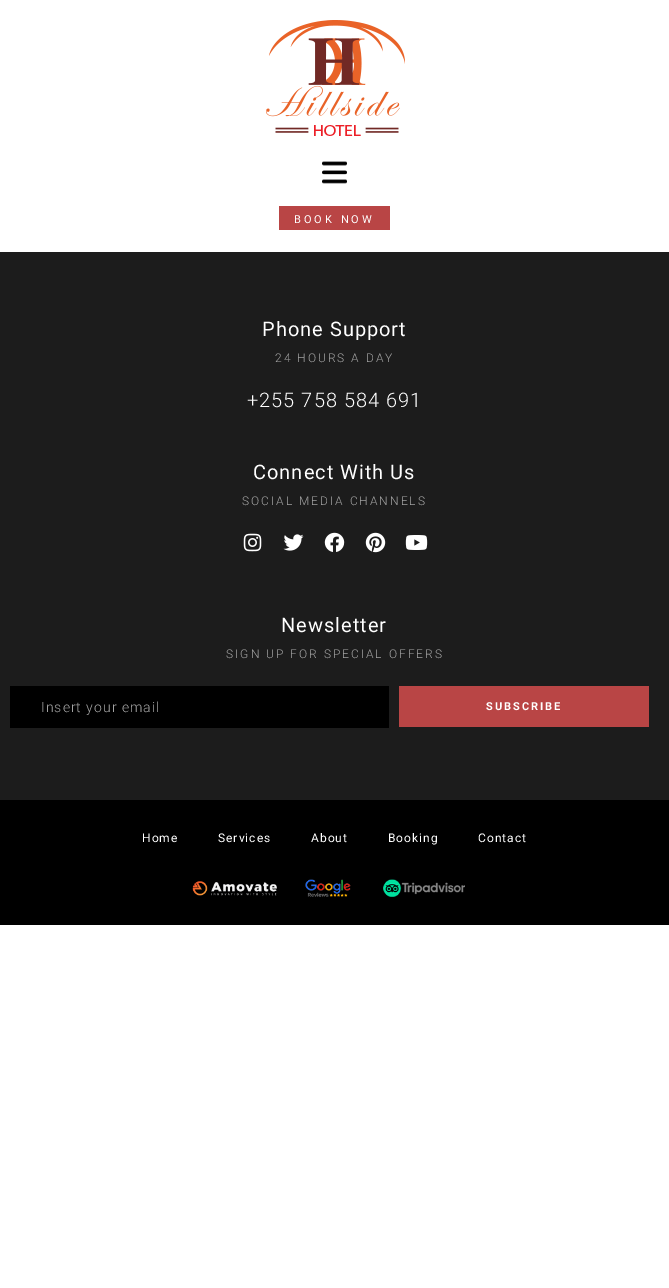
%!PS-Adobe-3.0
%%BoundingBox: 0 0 669 1288
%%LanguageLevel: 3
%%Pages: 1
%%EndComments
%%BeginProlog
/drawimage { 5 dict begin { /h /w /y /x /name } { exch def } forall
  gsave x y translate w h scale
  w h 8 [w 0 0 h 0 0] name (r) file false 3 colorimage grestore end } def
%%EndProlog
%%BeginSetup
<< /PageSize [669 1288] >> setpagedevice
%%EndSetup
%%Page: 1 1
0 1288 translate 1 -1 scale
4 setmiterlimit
1 setgray
0 0 669 1288 rectfill
(images/1.raw) 266 20 139 116 drawimage
(images/2.raw) 322 161 25 23 drawimage
0.725 0.271 0.271 setrgbcolor
279 206 111 24 rectfill
0.11 setgray
0 252 669 548 rectfill
(images/3.raw) 243 533 19 19 drawimage
(images/4.raw) 283 534 21 17 drawimage
(images/5.raw) 324 532 21 20 drawimage
(images/6.raw) 365 532 21 21 drawimage
(images/7.raw) 405 535 23 15 drawimage
0 setgray
10 686 379 42 rectfill
0.725 0.271 0.271 setrgbcolor
399 686 250 41 rectfill
0 setgray
0 800 669 125 rectfill
(images/8.raw) 192 879 273 18 drawimage
/Roboto-Regular [11 0 0 -11 0 0] selectfont
1 setgray
294 223 moveto 3 0 (BOOK NOW) ashow
/Roboto-Regular [20 0 0 -20 0 0] selectfont
262 336 moveto 1 0 (Phone Support) ashow
/Roboto-Light [12 0 0 -12 0 0] selectfont
0.639 setgray
275 362 moveto 2 0 (24 HOURS A DAY) ashow
/Roboto-Light [20 0 0 -20 0 0] selectfont
1 setgray
247 407 moveto 1 0 (+255 758 584 691) ashow
/Roboto-Regular [20 0 0 -20 0 0] selectfont
253 479 moveto 1 0 (Connect With Us) ashow
/Roboto-Light [12 0 0 -12 0 0] selectfont
0.639 setgray
242 505 moveto 2 0 (SOCIAL MEDIA CHANNELS) ashow
/Roboto-Regular [20 0 0 -20 0 0] selectfont
1 setgray
281 632 moveto 1 0 (Newsletter) ashow
/Roboto-Light [12 0 0 -12 0 0] selectfont
0.639 setgray
226 658 moveto 2 0 (SIGN UP FOR SPECIAL OFFERS) ashow
/Roboto-Light [14 0 0 -14 0 0] selectfont
41 712 moveto 1 0 (Insert your email) ashow
/Roboto-Bold [11 0 0 -11 0 0] selectfont
1 setgray
486 710 moveto 2 0 (SUBSCRIBE) ashow
/Roboto-Regular [12 0 0 -12 0 0] selectfont
142 842 moveto 1 0 (Home) ashow
218 842 moveto 1 0 (Services) ashow
311 842 moveto 1 0 (About) ashow
388 842 moveto 1 0 (Booking) ashow
478 842 moveto 1 0 (Contact) ashow
showpage
%%EOF
